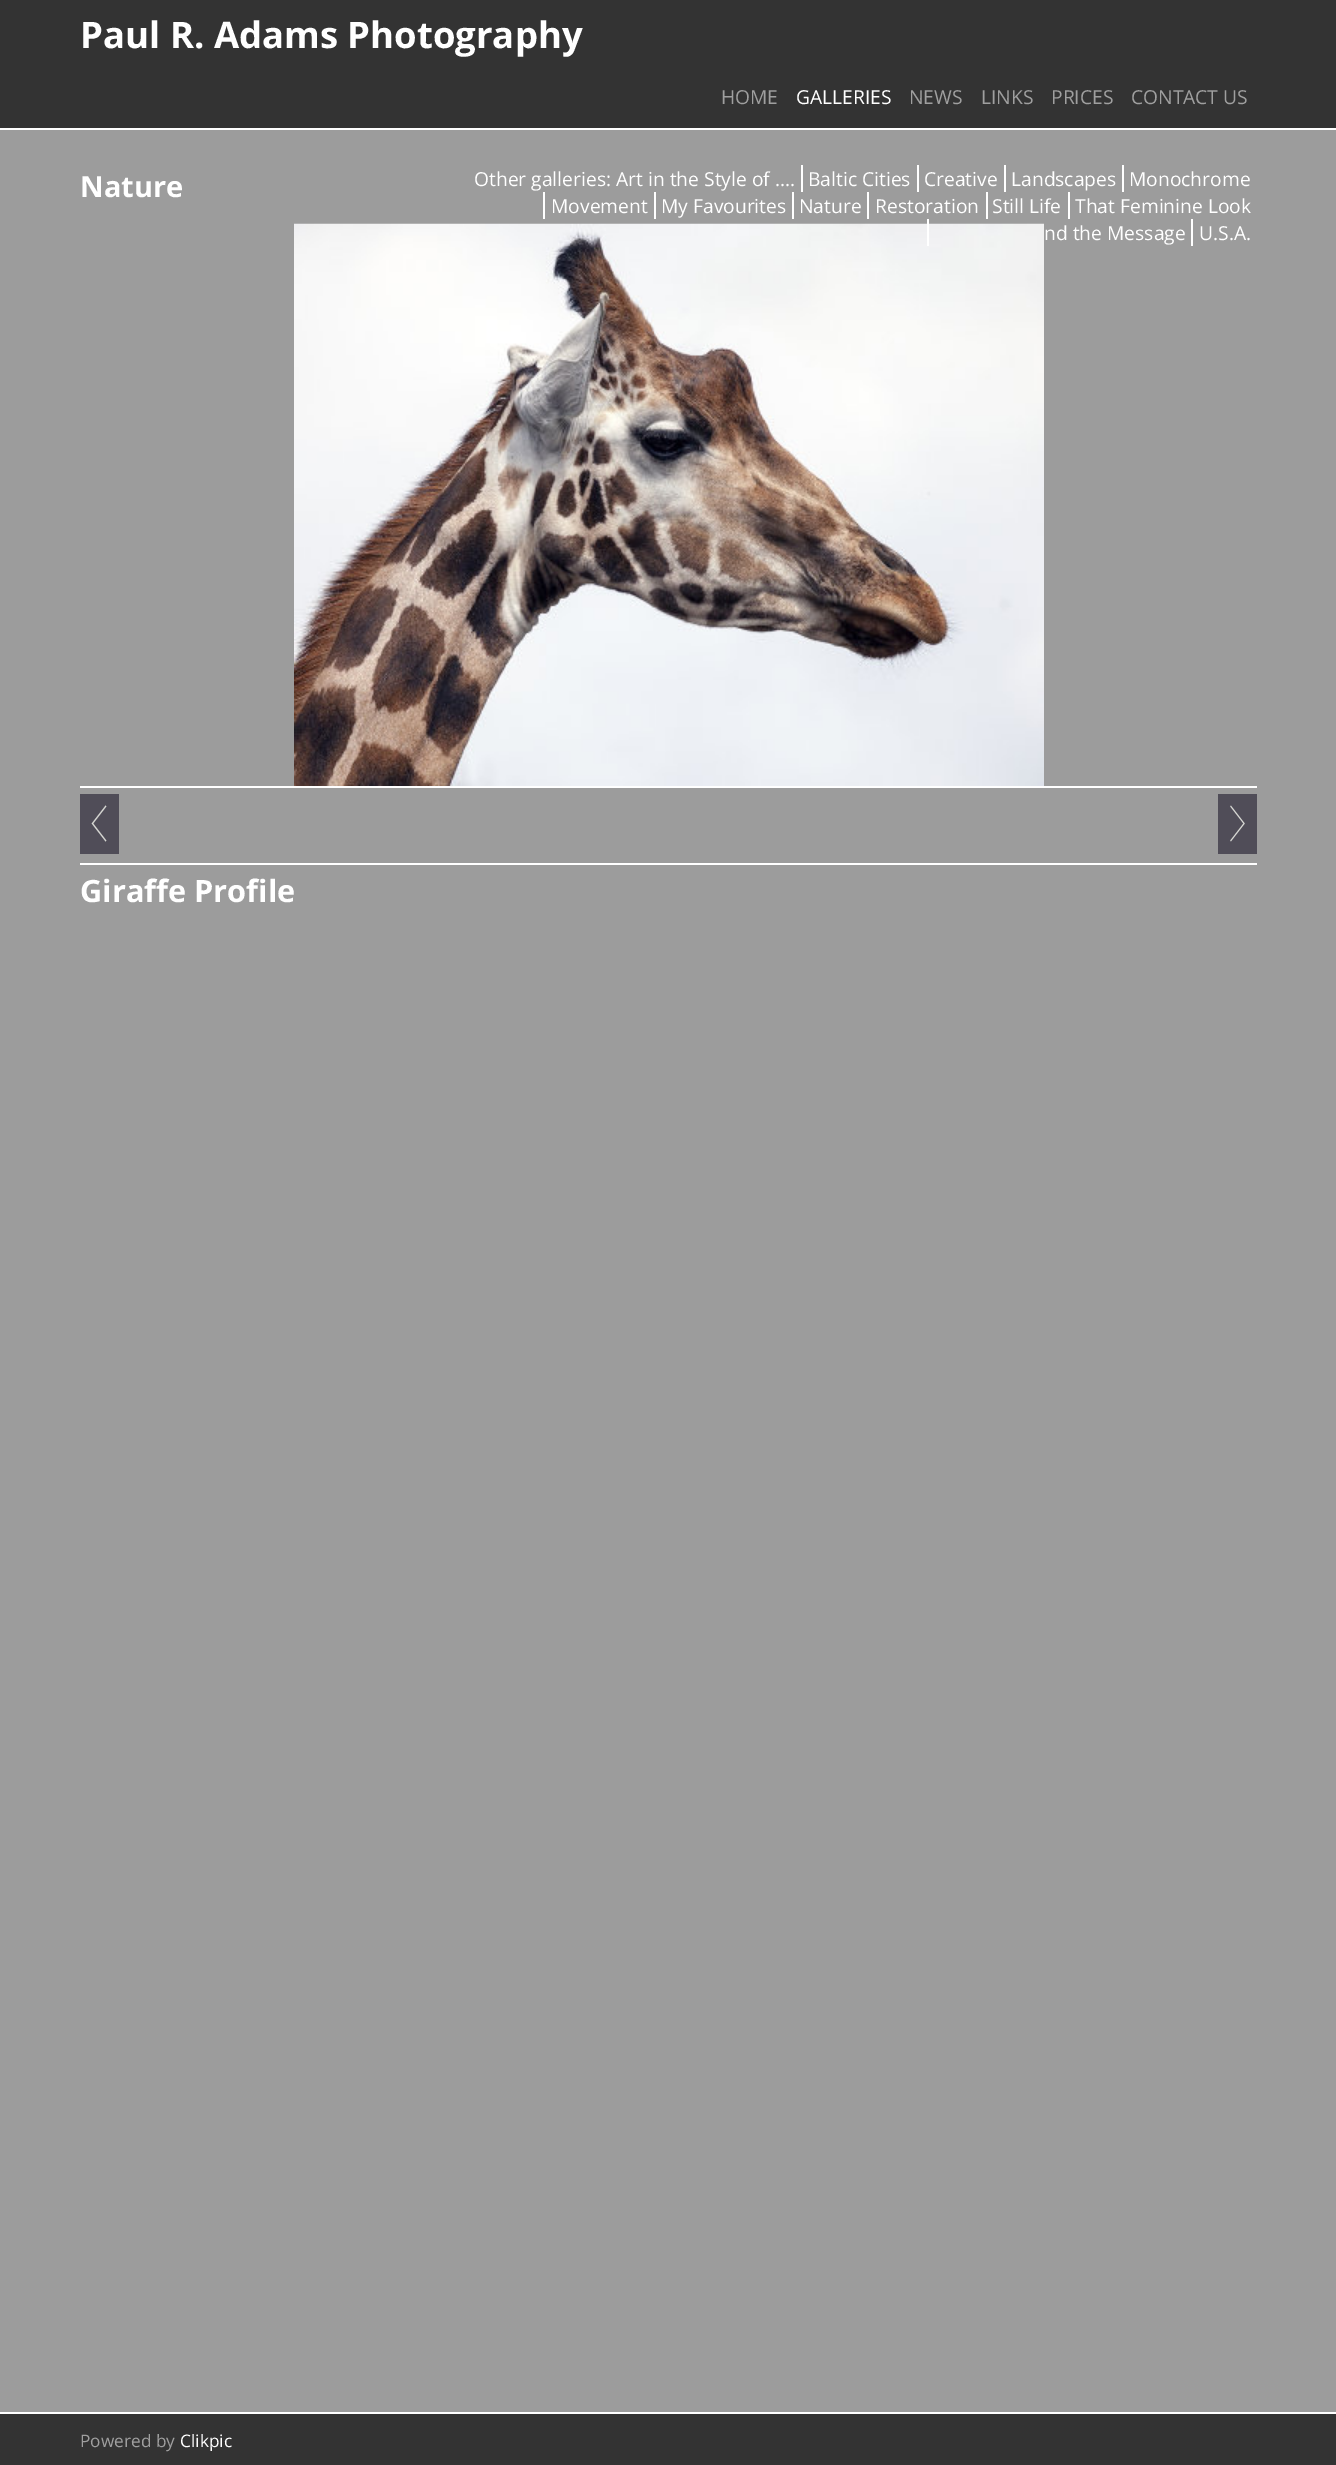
%!PS-Adobe-3.0
%%BoundingBox: 0 0 1336 2465
%%LanguageLevel: 3
%%Pages: 1
%%EndComments
%%BeginProlog
/drawimage { 5 dict begin { /h /w /y /x /name } { exch def } forall
  gsave x y translate w h scale
  w h 8 [w 0 0 h 0 0] name (r) file false 3 colorimage grestore end } def
%%EndProlog
%%BeginSetup
<< /PageSize [1336 2465] >> setpagedevice
%%EndSetup
%%Page: 1 1
0 2465 translate 1 -1 scale
4 setmiterlimit
0.612 setgray
0 0 1336 2465 rectfill
0.2 setgray
0 0 1336 128 rectfill
1 setgray
0 128 1336 2 rectfill
801 165 2 27 rectfill
917 165 2 27 rectfill
1004 165 2 27 rectfill
1122 165 2 27 rectfill
543 192 2 27 rectfill
654 192 2 27 rectfill
792 192 2 27 rectfill
867 192 2 27 rectfill
986 192 2 27 rectfill
1068 192 2 27 rectfill
(images/1.raw) 294 223 750 563 drawimage
927 219 2 27 rectfill
1191 219 2 27 rectfill
80 786 1177 2 rectfill
80 863 1177 2 rectfill
0.314 0.302 0.345 setrgbcolor
80 794 39 60 rectfill
(images/2.raw) 91 805 16 37 drawimage
1218 794 39 60 rectfill
(images/3.raw) 1230 805 15 37 drawimage
0.2 setgray
0 2414 1336 51 rectfill
1 setgray
0 2412 1336 2 rectfill
/OpenSans-Bold [36.5 0 0 -36.5 0 0] selectfont
80 48 moveto (Paul R. Adams Photography) show
/OpenSans-Regular [19.25 0 0 -19.25 0 0] selectfont
0.624 setgray
721 104 moveto (HOME) show
1 setgray
796 104 moveto (GALLERIES) show
0.624 setgray
909 104 moveto (NEWS) show
981 104 moveto (LINKS) show
1051 104 moveto (PRICES) show
1131 104 moveto (CONTACT US) show
/OpenSans-Bold [29 0 0 -29 0 0] selectfont
1 setgray
80 197 moveto (Nature) show
/OpenSans-Regular [19.25 0 0 -19.25 0 0] selectfont
474 186 moveto (Other galleries:) show
616 186 moveto (Art in the Style of ....) show
808 186 moveto (Baltic Cities) show
924 186 moveto (Creative) show
1011 186 moveto (Landscapes) show
1129 186 moveto (Monochrome) show
551 213 moveto (Movement) show
661 213 moveto (My Favourites) show
799 213 moveto (Nature) show
875 213 moveto (Restoration) show
992 213 moveto (Still Life) show
1075 213 moveto (That Feminine Look) show
1044 240 moveto (nd the Message) show
1199 240 moveto (U.S.A.) show
/OpenSans-Bold [30.75 0 0 -30.75 0 0] selectfont
80 902 moveto (Giraffe Profile) show
/OpenSans-Regular [17.25 0 0 -17.25 0 0] selectfont
0.624 setgray
80 2447 moveto (Powered by) show
1 setgray
180 2447 moveto (Clikpic) show
showpage
%%EOF
